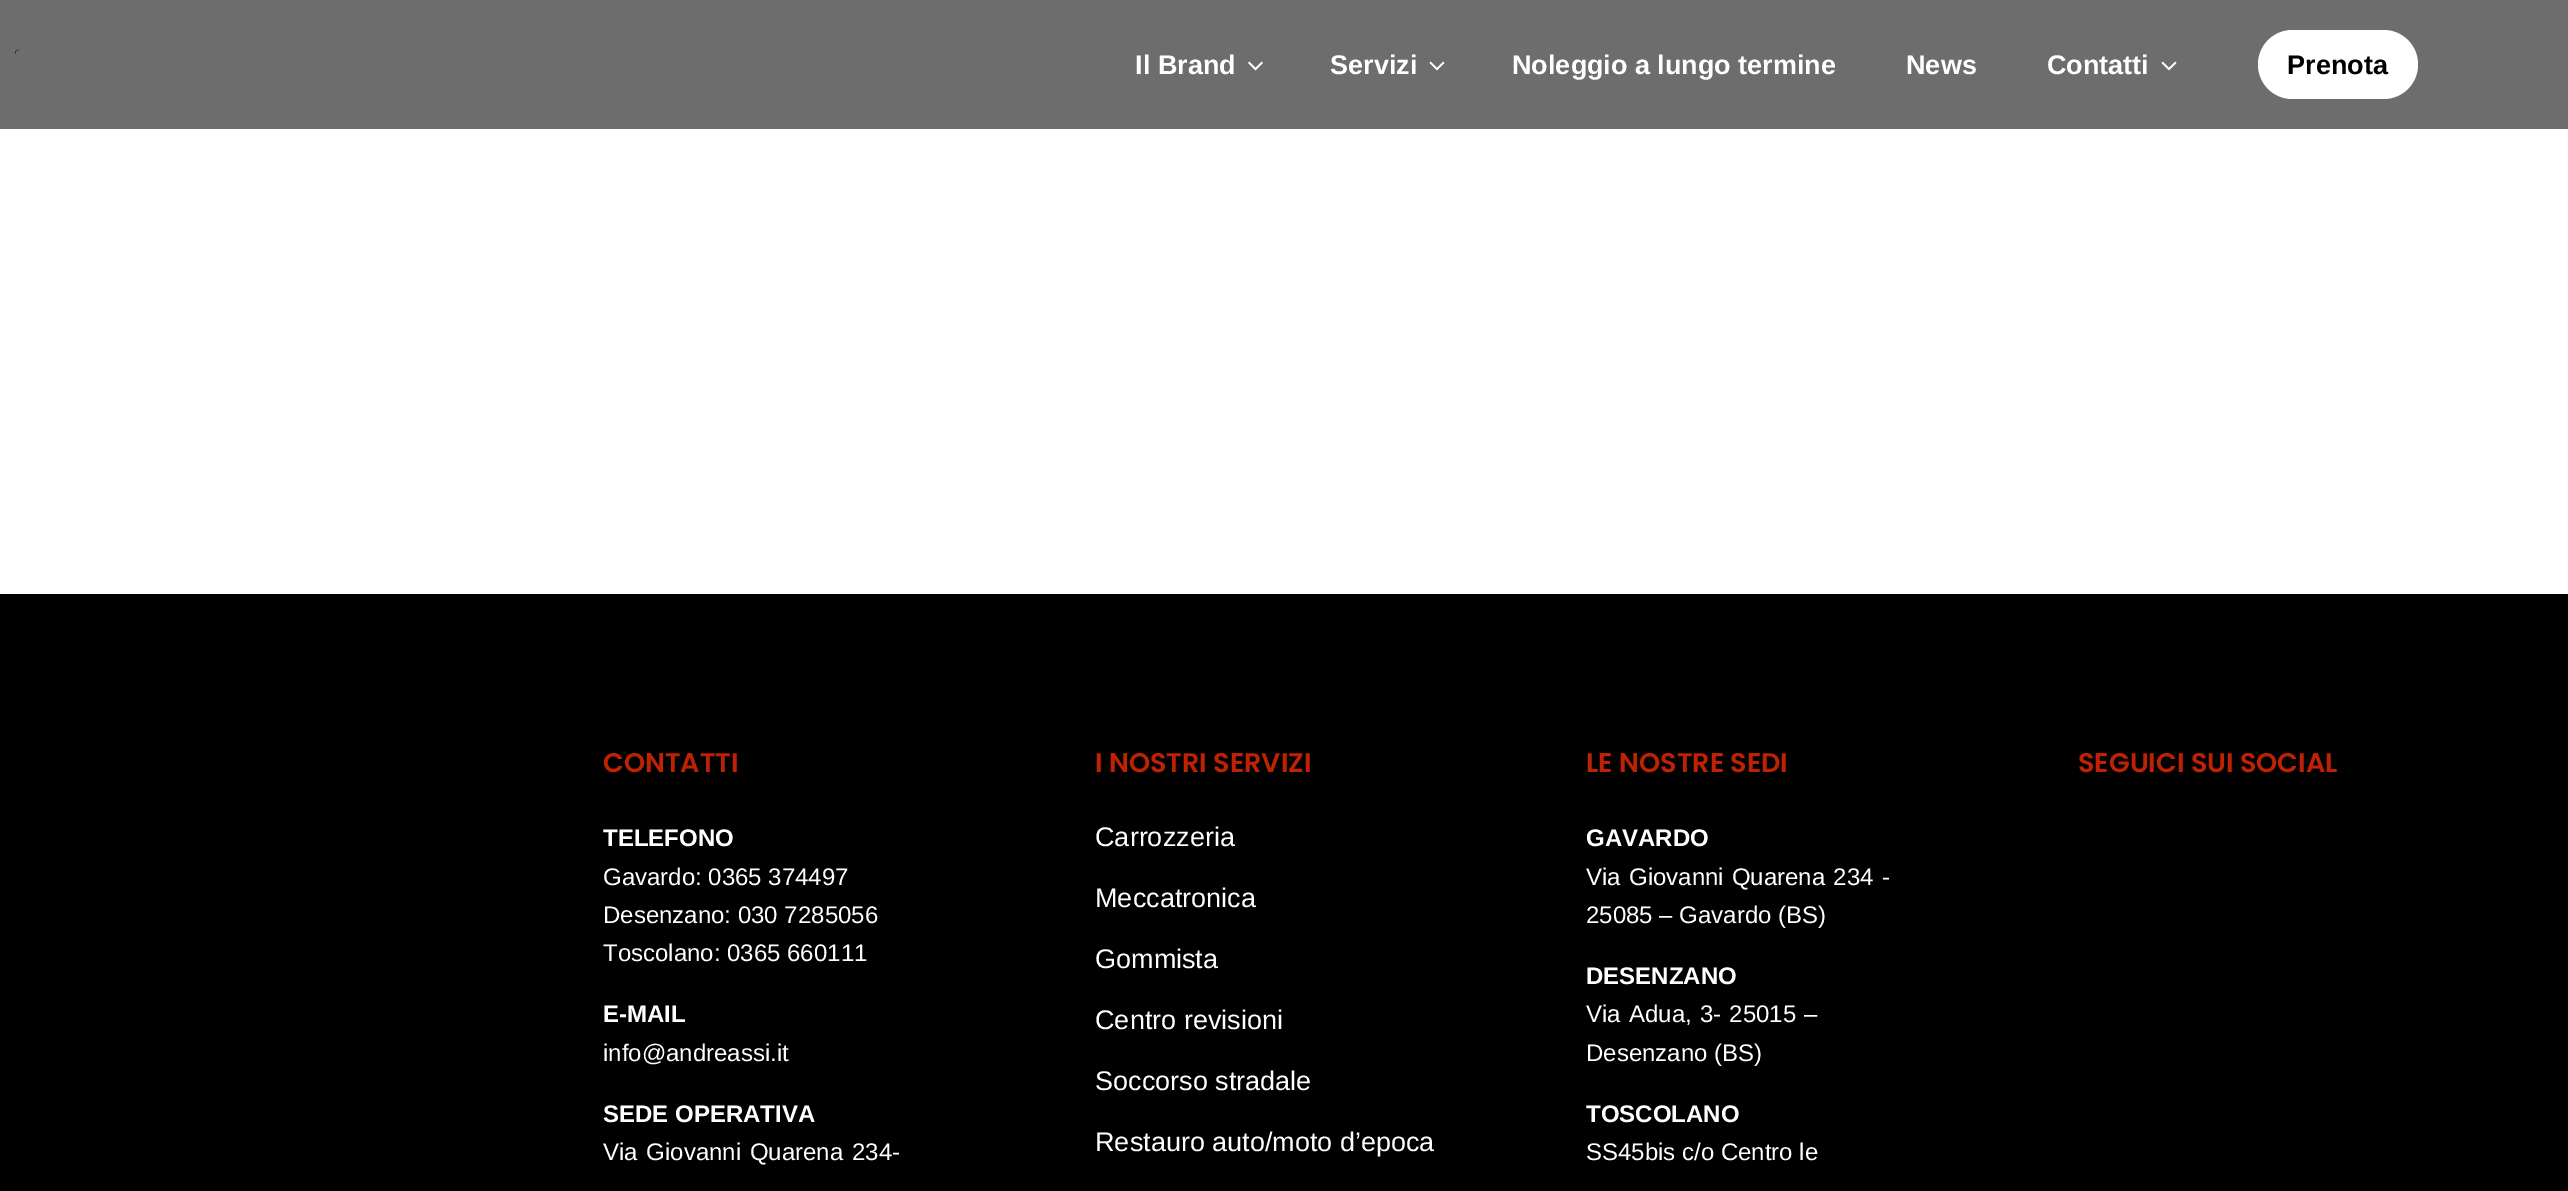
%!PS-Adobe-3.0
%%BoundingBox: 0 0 2568 1191
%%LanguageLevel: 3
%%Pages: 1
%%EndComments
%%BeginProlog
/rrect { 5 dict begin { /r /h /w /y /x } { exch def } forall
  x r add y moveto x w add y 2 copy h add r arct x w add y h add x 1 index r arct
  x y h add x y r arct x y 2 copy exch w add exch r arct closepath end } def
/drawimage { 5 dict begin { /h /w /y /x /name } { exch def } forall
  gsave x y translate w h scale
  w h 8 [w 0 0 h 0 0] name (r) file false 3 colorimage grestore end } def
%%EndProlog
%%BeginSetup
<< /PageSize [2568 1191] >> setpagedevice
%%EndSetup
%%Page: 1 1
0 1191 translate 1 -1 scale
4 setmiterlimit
1 setgray
0 0 2568 1191 rectfill
0.427 setgray
0 0 2568 129 rectfill
(images/1.raw) 15 49 6 5 drawimage
(images/2.raw) 1248 61 15 10 drawimage
(images/3.raw) 1429 61 16 10 drawimage
(images/3.raw) 2161 61 16 10 drawimage
1 setgray
2258 30 160 69 34.5 rrect fill
0 setgray
0 594 2568 597 rectfill
/LiberationSans-Bold [27 0 0 -27 0 0] selectfont
1 setgray
1135 74 moveto (Il Brand) show
1330 74 moveto (Servizi) show
1512 74 moveto (Noleggio a lungo termine) show
1906 74 moveto (News) show
2047 74 moveto (Contatti) show
0.004 setgray
2287 74 moveto (Prenota) show
/Poppins-SemiBold [27 0 0 -27 0 0] selectfont
0.749 0.129 0.012 setrgbcolor
603 772 moveto (CONTATTI) show
/LiberationSans-Bold [24 0 0 -24 0 0] selectfont
1 setgray
603 846 moveto (TELEFONO) show
/LiberationSans-Regular [24 0 0 -24 0 0] selectfont
603 885 moveto (Gavardo: 0365 374497) show
603 923 moveto (Desenzano: 030 7285056) show
603 961 moveto (Toscolano: 0365 660111) show
/LiberationSans-Bold [24 0 0 -24 0 0] selectfont
603 1022 moveto (E-MAIL) show
/LiberationSans-Regular [24 0 0 -24 0 0] selectfont
603 1061 moveto (info@andreassi.it) show
/LiberationSans-Bold [24 0 0 -24 0 0] selectfont
603 1122 moveto (SEDE OPERATIVA) show
/LiberationSans-Regular [24 0 0 -24 0 0] selectfont
603 1160 moveto 2 0 32 (Via Giovanni Quarena 234-) widthshow
/Poppins-SemiBold [27 0 0 -27 0 0] selectfont
0.749 0.129 0.012 setrgbcolor
1095 772 moveto (I NOSTRI SERVIZI) show
/LiberationSans-Regular [27 0 0 -27 0 0] selectfont
1 setgray
1095 846 moveto (Carrozzeria) show
1095 907 moveto (Meccatronica) show
1095 968 moveto (Gommista) show
1095 1029 moveto (Centro revisioni) show
1095 1090 moveto (Soccorso stradale) show
1095 1151 moveto (Restauro auto/moto d’epoca) show
/Poppins-SemiBold [27 0 0 -27 0 0] selectfont
0.749 0.129 0.012 setrgbcolor
1586 772 moveto (LE NOSTRE SEDI) show
/LiberationSans-Bold [24 0 0 -24 0 0] selectfont
1 setgray
1586 846 moveto (GAVARDO) show
/LiberationSans-Regular [24 0 0 -24 0 0] selectfont
1586 885 moveto 1.5 0 32 (Via Giovanni Quarena 234 -) widthshow
1586 923 moveto (25085 – Gavardo \(BS\)) show
/LiberationSans-Bold [24 0 0 -24 0 0] selectfont
1586 984 moveto (DESENZANO) show
/LiberationSans-Regular [24 0 0 -24 0 0] selectfont
1586 1022 moveto 1.5 0 32 (Via Adua, 3- 25015 –) widthshow
1586 1061 moveto (Desenzano \(BS\)) show
/LiberationSans-Bold [24 0 0 -24 0 0] selectfont
1586 1122 moveto (TOSCOLANO) show
/LiberationSans-Regular [24 0 0 -24 0 0] selectfont
1586 1160 moveto (SS45bis c/o Centro le) show
/Poppins-SemiBold [27 0 0 -27 0 0] selectfont
0.749 0.129 0.012 setrgbcolor
2078 772 moveto (SEGUICI SUI SOCIAL) show
showpage
%%EOF
